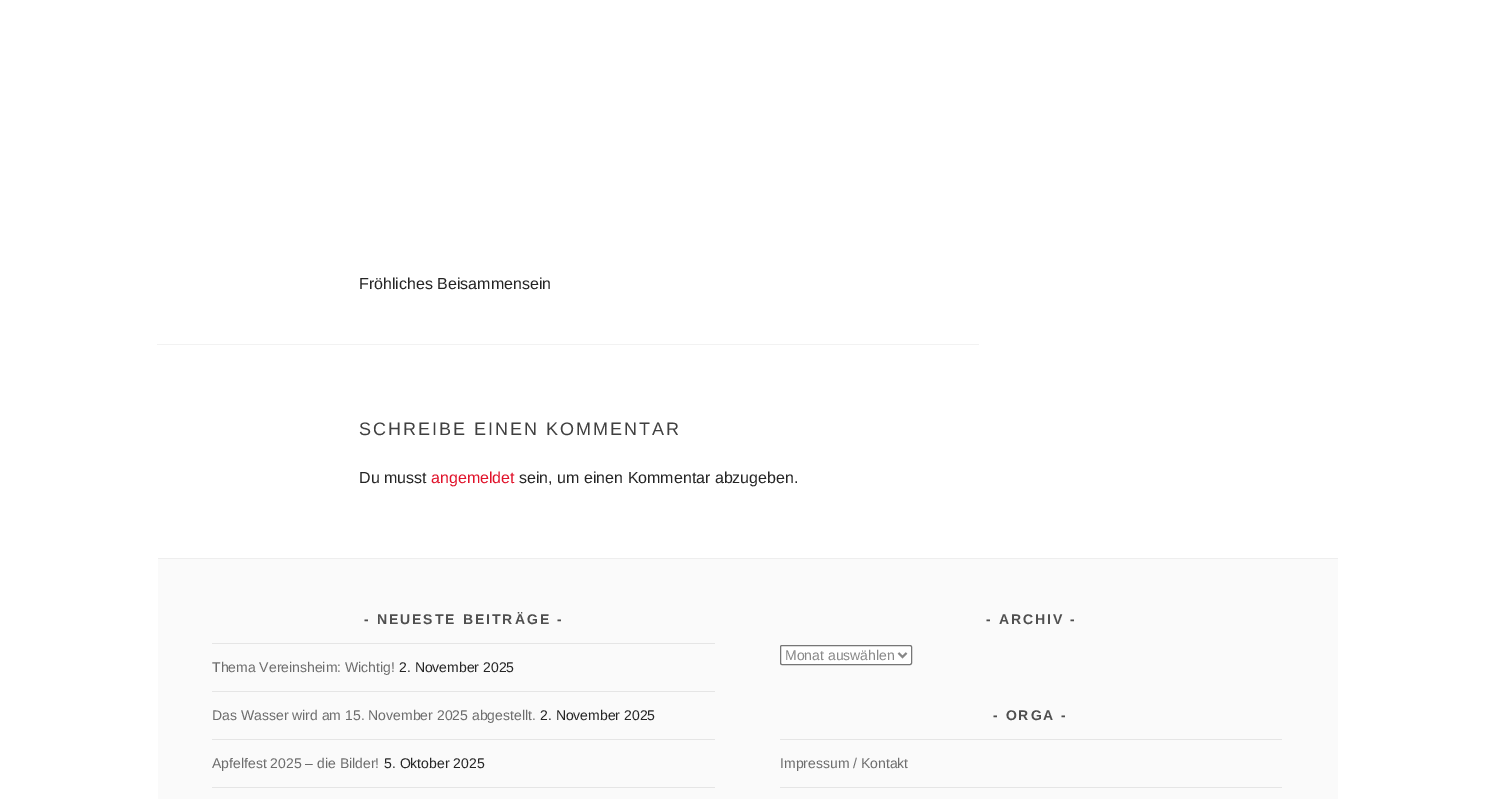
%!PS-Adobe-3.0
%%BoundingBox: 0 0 1495 799
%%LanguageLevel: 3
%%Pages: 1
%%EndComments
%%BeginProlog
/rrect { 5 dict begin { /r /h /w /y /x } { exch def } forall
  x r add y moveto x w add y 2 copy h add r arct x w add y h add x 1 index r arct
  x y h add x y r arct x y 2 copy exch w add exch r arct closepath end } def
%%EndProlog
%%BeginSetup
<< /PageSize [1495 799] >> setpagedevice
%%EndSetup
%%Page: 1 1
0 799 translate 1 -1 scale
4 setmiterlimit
1 setgray
0 0 1495 799 rectfill
0.949 setgray
157 344 822 1 rectfill
0.98 setgray
158 559 1180 240 rectfill
0.933 setgray
158 558 1180 1 rectfill
0.898 setgray
212 643 503 1 rectfill
212 691 503 1 rectfill
212 739 503 1 rectfill
212 787 503 1 rectfill
1 setgray
780.5 645.5 131 19 1.5 rrect gsave fill grestore
0.463 setgray
stroke
0.533 setgray
2 setlinewidth
newpath 898.5 653 moveto 902.5 657 lineto 906.5 653 lineto stroke
0.898 setgray
780 739 502 1 rectfill
780 787 502 1 rectfill
/LiberationSans-Regular [16 0 0 -16 0 0] selectfont
0.145 setgray
359 289 moveto (Fröhliches Beisammensein) show
/LiberationSans-Regular [18 0 0 -18 0 0] selectfont
0.251 setgray
359 435 moveto 2 0 (SCHREIBE EINEN KOMMENTAR) ashow
/LiberationSans-Regular [16 0 0 -16 0 0] selectfont
0.145 setgray
359 483 moveto (Du musst) show
0.882 0.071 0.165 setrgbcolor
431 483 moveto (angemeldet) show
0.145 setgray
519 483 moveto (sein, um einen Kommentar abzugeben.) show
/LiberationSans-Bold [14 0 0 -14 0 0] selectfont
0.31 setgray
364 624 moveto 2 0 (- NEUESTE BEITRÄGE -) ashow
/LiberationSans-Regular [14 0 0 -14 0 0] selectfont
0.427 setgray
212 672 moveto (Thema Vereinsheim: Wichtig!) show
0.145 setgray
399 672 moveto (2. November 2025) show
0.427 setgray
212 720 moveto (Das Wasser wird am 15. November 2025 abgestellt.) show
0.145 setgray
540 720 moveto (2. November 2025) show
0.427 setgray
212 768 moveto (Apfelfest 2025 – die Bilder!) show
0.145 setgray
384 768 moveto (5. Oktober 2025) show
/LiberationSans-Bold [14 0 0 -14 0 0] selectfont
0.31 setgray
986 624 moveto 2 0 (- ARCHIV -) ashow
/LiberationSans-Regular [14 0 0 -14 0 0] selectfont
0.533 setgray
785 660 moveto (Monat auswählen) show
/LiberationSans-Bold [14 0 0 -14 0 0] selectfont
0.31 setgray
993 720 moveto 2 0 (- ORGA -) ashow
/LiberationSans-Regular [14 0 0 -14 0 0] selectfont
0.427 setgray
780 768 moveto (Impressum / Kontakt) show
showpage
%%EOF
